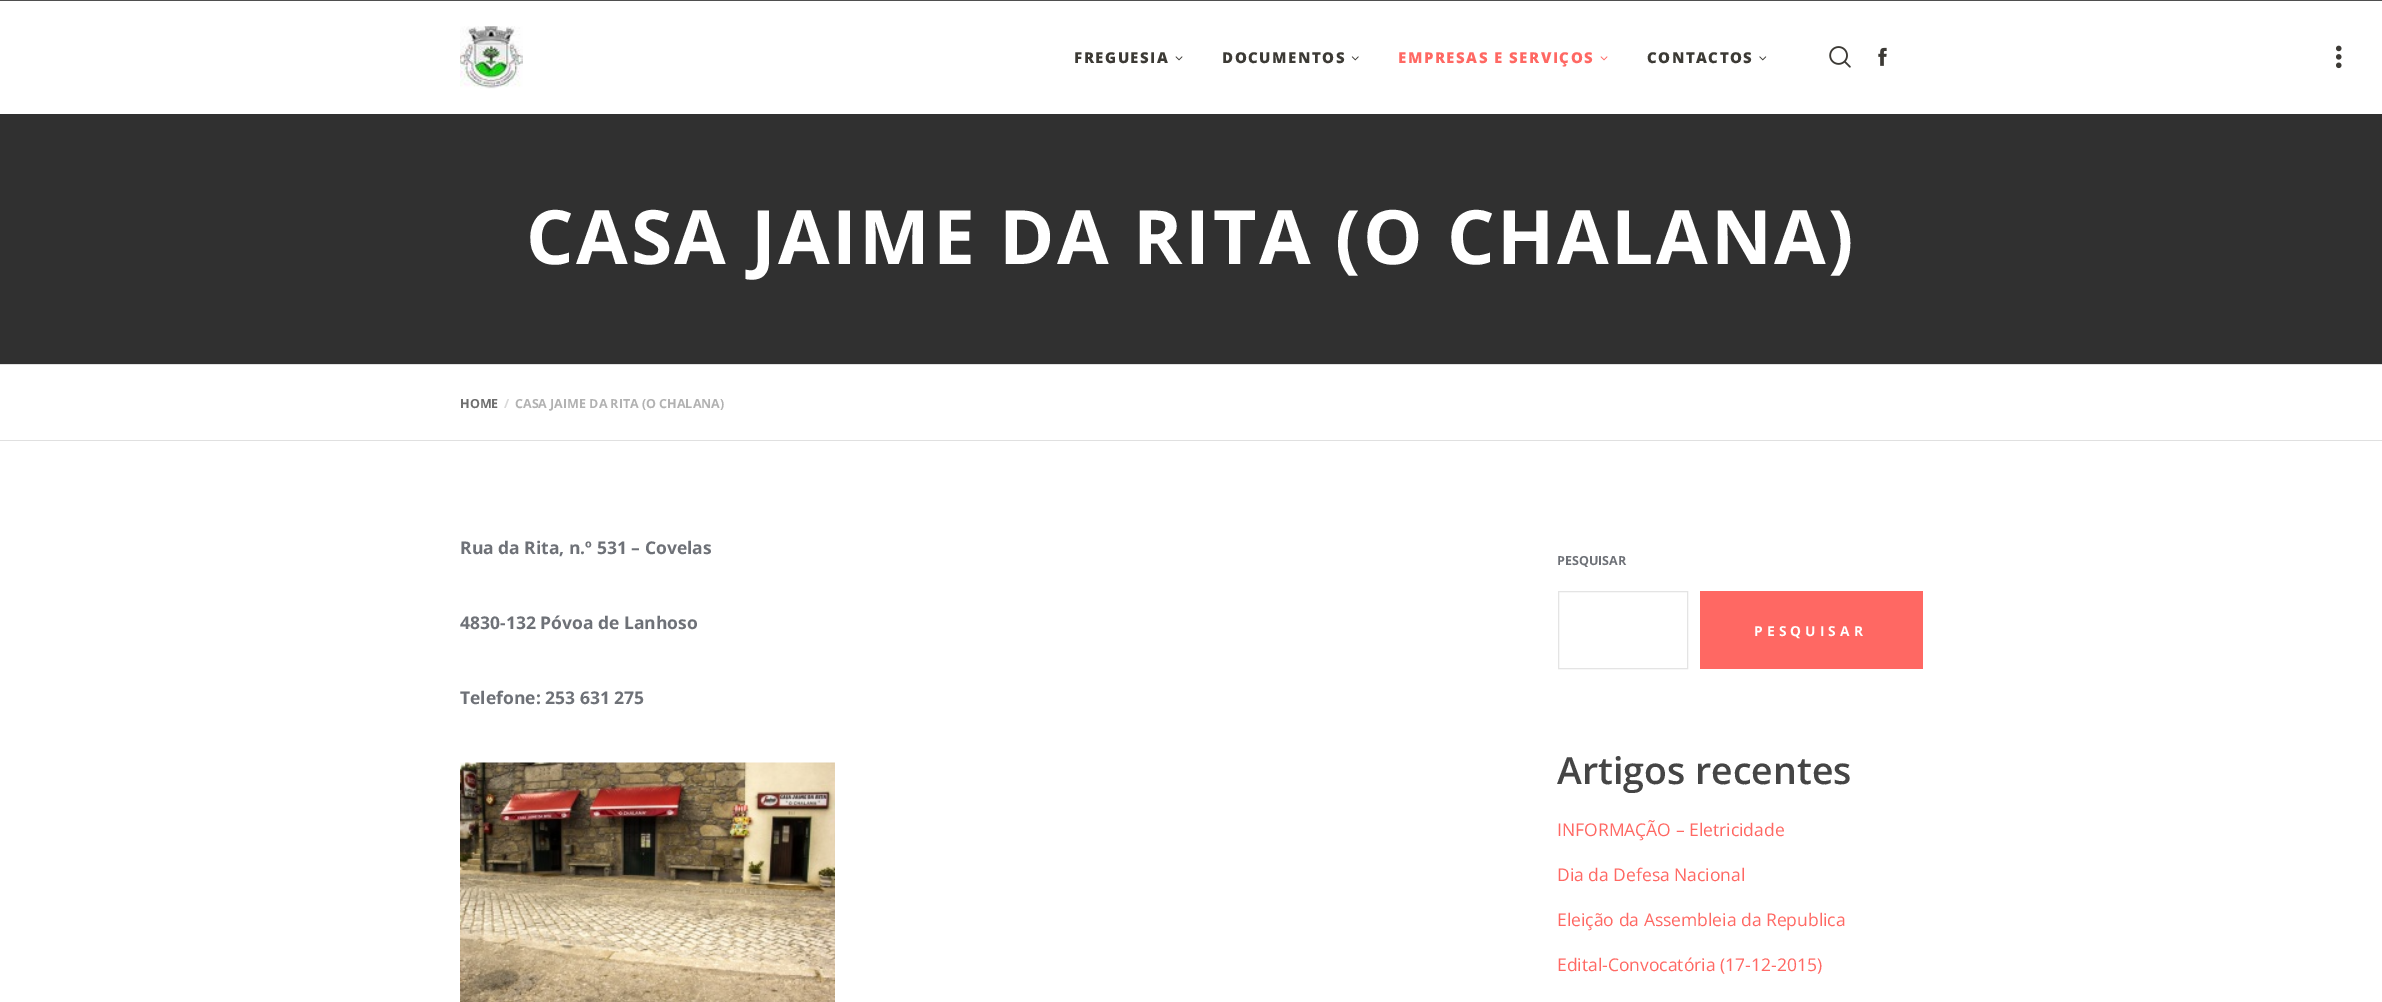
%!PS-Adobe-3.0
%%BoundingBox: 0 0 2382 1002
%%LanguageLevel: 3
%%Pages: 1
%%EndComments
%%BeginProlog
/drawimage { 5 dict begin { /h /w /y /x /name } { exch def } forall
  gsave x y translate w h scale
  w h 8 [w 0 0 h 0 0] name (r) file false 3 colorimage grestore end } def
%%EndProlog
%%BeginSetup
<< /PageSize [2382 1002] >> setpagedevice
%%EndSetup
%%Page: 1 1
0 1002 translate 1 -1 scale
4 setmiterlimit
1 setgray
0 0 2382 1002 rectfill
0.31 setgray
0 0 2382 1 rectfill
(images/1.raw) 460 26 63 63 drawimage
(images/2.raw) 1175 56 8 5 drawimage
(images/3.raw) 1351 56 8 5 drawimage
(images/4.raw) 1600 56 8 5 drawimage
(images/5.raw) 1759 56 8 5 drawimage
(images/6.raw) 1829 46 22 22 drawimage
(images/7.raw) 1878 47 9 19 drawimage
(images/8.raw) 2336 45 6 24 drawimage
0.188 setgray
0 114 2382 250 rectfill
0.878 setgray
0 364 2382 1 rectfill
0 440 2382 1 rectfill
(images/9.raw) 460 762 375 240 drawimage
0.894 setgray
1558.5 591.5 129 77 rectstroke
1 0.408 0.388 setrgbcolor
1700 591 223 78 rectfill
/OpenSans-ExtraBold [15 0 0 -15 0 0] selectfont
0.235 0.227 0.208 setrgbcolor
1074 63 moveto 1.5 0 (FREGUESIA) ashow
1222 63 moveto 1.5 0 (DOCUMENTOS) ashow
1 0.408 0.388 setrgbcolor
1398 63 moveto 1.5 0 (EMPRESAS E SERVIÇOS) ashow
0.235 0.227 0.208 setrgbcolor
1647 63 moveto 1.5 0 (CONTACTOS) ashow
/OpenSans-Bold [75 0 0 -75 0 0] selectfont
1 setgray
526 264 moveto 2.5 0 (CASA JAIME DA RITA \(O CHALANA\)) ashow
/OpenSans-Bold [12.5 0 0 -12.5 0 0] selectfont
0.431 setgray
460 408 moveto (HOME) show
0.851 setgray
504 408 moveto (/) show
0.698 setgray
515 408 moveto (CASA JAIME DA RITA \(O CHALANA\)) show
/OpenSans-Bold [17.5 0 0 -17.5 0 0] selectfont
0.431 0.443 0.467 setrgbcolor
460 554 moveto (Rua da Rita, n.º 531 – Covelas) show
460 629 moveto (4830-132 Póvoa de Lanhoso) show
460 704 moveto (Telefone: 253 631 275) show
/OpenSans-Bold [12.5 0 0 -12.5 0 0] selectfont
1557 565 moveto (PESQUISAR) show
/OpenSans-Bold [13.75 0 0 -13.75 0 0] selectfont
1 setgray
1754 636 moveto 4.1 0 (PESQUISAR) ashow
/OpenSans-SemiBold [37.5 0 0 -37.5 0 0] selectfont
0.271 setgray
1557 784 moveto (Artigos recentes) show
/OpenSans-Regular [17.5 0 0 -17.5 0 0] selectfont
1 0.408 0.388 setrgbcolor
1557 836 moveto (INFORMAÇÃO – Eletricidade) show
1557 881 moveto (Dia da Defesa Nacional) show
1557 926 moveto (Eleição da Assembleia da Republica) show
1557 971 moveto (Edital-Convocatória \(17-12-2015\)) show
showpage
%%EOF
